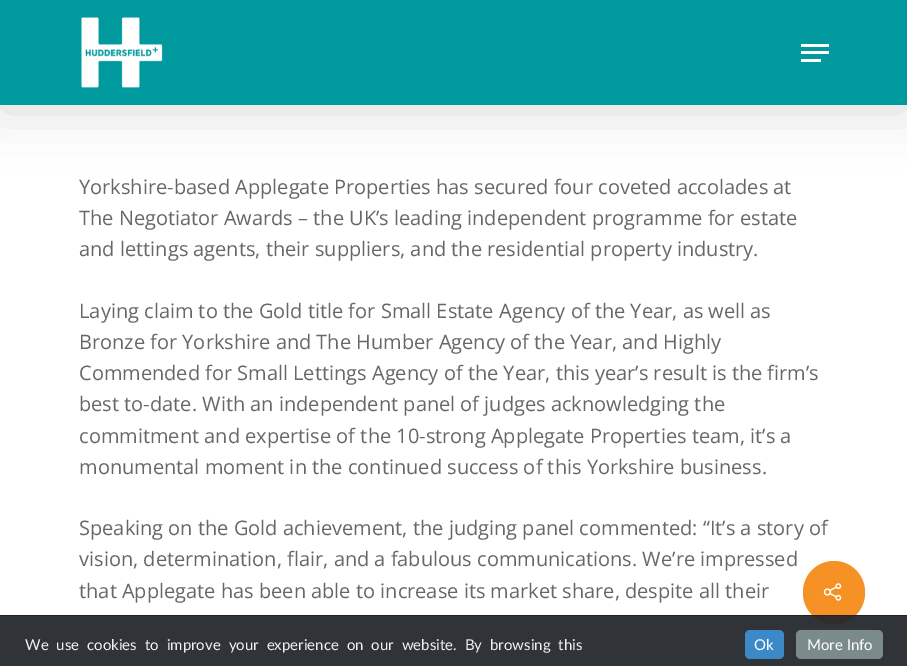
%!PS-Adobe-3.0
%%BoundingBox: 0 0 907 666
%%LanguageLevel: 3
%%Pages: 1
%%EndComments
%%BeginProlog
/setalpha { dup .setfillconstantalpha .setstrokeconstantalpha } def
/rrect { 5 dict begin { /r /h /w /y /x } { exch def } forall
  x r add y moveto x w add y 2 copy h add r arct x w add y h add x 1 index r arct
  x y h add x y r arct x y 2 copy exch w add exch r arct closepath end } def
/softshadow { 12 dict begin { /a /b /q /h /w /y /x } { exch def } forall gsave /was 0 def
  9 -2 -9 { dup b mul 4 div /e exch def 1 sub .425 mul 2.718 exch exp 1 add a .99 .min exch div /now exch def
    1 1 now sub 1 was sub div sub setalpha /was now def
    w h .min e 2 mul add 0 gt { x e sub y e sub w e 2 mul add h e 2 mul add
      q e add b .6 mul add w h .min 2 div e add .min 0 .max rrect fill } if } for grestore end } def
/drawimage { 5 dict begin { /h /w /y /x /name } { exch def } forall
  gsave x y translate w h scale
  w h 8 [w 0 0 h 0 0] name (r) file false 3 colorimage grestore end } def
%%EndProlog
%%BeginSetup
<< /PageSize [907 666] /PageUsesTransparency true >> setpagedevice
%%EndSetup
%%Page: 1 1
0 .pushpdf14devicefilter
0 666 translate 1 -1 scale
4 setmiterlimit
1 setgray
0 0 907 666 rectfill
0 setgray
0 4 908 105 0 28 0.15 softshadow
0 0.604 0.62 setrgbcolor
0 0 907 105 rectfill
(images/1.raw) 81 17 82 71 drawimage
1 setgray
801 44 28 3 rectfill
801 59 20 3 rectfill
801 51 28 3 rectfill
0.961 0.569 0.145 setrgbcolor
803 561 62 63 31 rrect fill
(images/2.raw) 823 583 19 18 drawimage
0.7 setalpha
0.196 0.227 0.271 setrgbcolor
0 616 907 50 rectfill
1 setalpha
0.125 0.133 0.149 setrgbcolor
0 615 907 1 rectfill
0.8 setalpha
0 616 907 50 rectfill
1 setalpha
0.231 0.537 0.78 setrgbcolor
745 630 39 29 5 rrect fill
0.482 0.541 0.545 setrgbcolor
796 630 87 29 5 rrect fill
/OpenSans-Regular [20 0 0 -20 0 0] selectfont
0.404 setgray
79 194 moveto (Yorkshire-based Applegate Properties has secured four coveted accolades at) show
79 225 moveto (The Negotiator Awards – the UK’s leading independent programme for estate) show
79 256 moveto (and lettings agents, their suppliers, and the residential property industry.) show
79 318 moveto (Laying claim to the Gold title for Small Estate Agency of the Year, as well as) show
79 349 moveto (Bronze for Yorkshire and The Humber Agency of the Year, and Highly) show
79 380 moveto (Commended for Small Lettings Agency of the Year, this year’s result is the firm’s) show
79 411 moveto (best to-date. With an independent panel of judges acknowledging the) show
79 443 moveto (commitment and expertise of the 10-strong Applegate Properties team, it’s a) show
79 474 moveto (monumental moment in the continued success of this Yorkshire business.) show
79 535 moveto (Speaking on the Gold achievement, the judging panel commented: “It’s a story of) show
79 566 moveto (vision, determination, flair, and a fabulous communications. We’re impressed) show
79 598 moveto (that Applegate has been able to increase its market share, despite all their) show
/Lato-Regular [15 0 0 -15 0 0] selectfont
0.945 0.945 0.953 setrgbcolor
25 650 moveto 4.1 0 32 (We use cookies to improve your experience on our website. By browsing this) widthshow
1 setgray
754 650 moveto (Ok) show
807 650 moveto (More Info) show
.poppdf14devicefilter showpage
%%EOF
